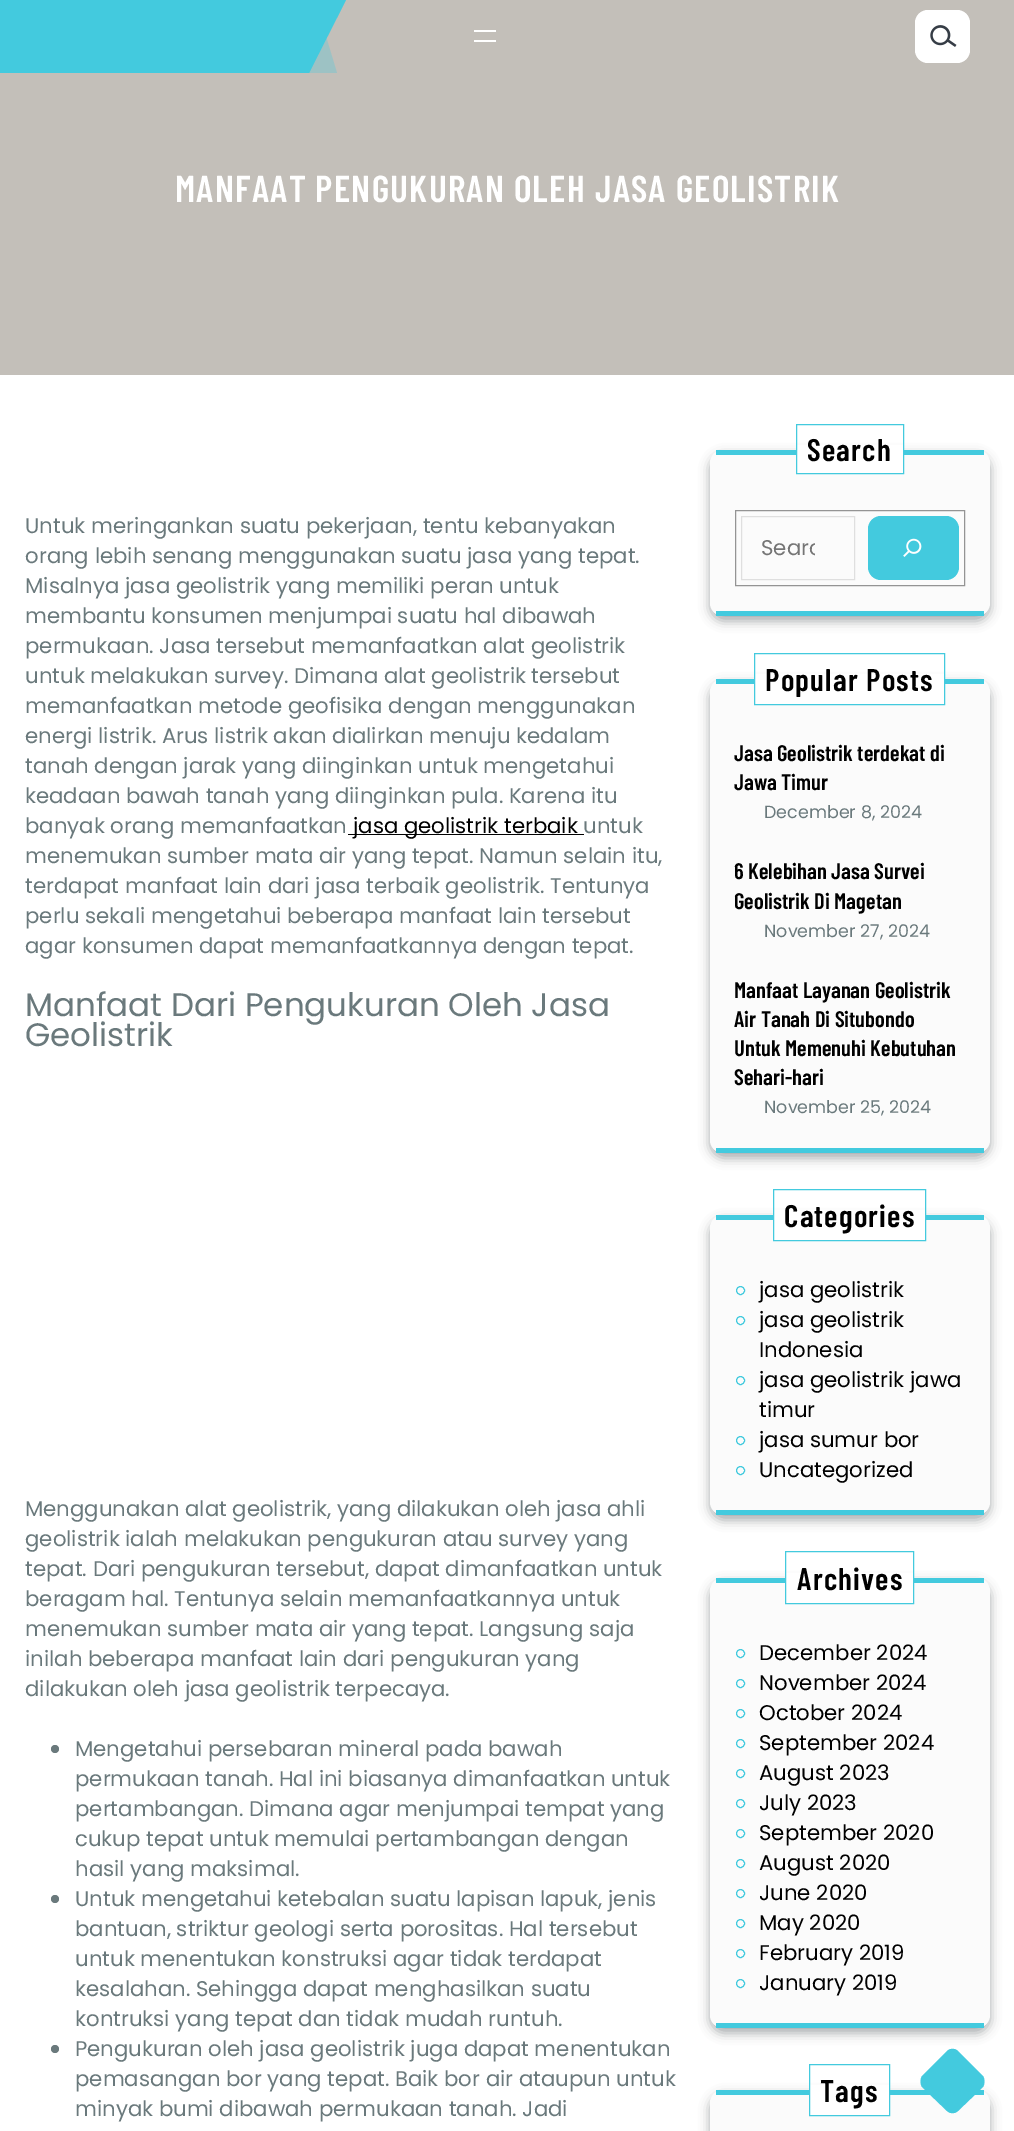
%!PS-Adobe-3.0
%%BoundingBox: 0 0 1014 2131
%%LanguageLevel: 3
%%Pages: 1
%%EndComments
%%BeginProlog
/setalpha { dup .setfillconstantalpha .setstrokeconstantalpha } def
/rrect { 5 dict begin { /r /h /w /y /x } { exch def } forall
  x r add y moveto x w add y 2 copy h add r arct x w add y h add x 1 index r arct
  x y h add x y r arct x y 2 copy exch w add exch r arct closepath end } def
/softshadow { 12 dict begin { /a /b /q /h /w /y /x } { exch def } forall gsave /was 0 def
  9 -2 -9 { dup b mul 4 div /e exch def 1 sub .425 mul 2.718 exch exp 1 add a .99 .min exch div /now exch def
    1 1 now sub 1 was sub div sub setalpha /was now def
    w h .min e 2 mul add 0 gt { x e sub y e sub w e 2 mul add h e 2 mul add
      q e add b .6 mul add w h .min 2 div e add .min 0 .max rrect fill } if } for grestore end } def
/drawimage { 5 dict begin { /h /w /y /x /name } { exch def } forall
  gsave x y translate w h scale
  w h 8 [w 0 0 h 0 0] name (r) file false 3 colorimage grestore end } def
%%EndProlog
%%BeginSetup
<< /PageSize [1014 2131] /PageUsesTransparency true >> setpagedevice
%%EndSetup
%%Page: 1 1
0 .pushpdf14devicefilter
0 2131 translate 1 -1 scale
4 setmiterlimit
1 setgray
0 0 1014 2131 rectfill
0.765 0.749 0.725 setrgbcolor
0 0 1014 375 rectfill
0.616 0.761 0.769 setrgbcolor
newpath 137 0 moveto 137 73 lineto 337 73 lineto 315 0 lineto closepath fill
0.263 0.792 0.871 setrgbcolor
newpath 0 0 moveto 0 73 lineto 309 73 lineto 346 0 lineto closepath fill
1 setgray
474 30 22 2 rectfill
474 40 22 2 rectfill
915 10 55 53 13 rrect fill
(images/1.raw) 930 25 27 22 drawimage
0 setgray
348 834 236 1 rectfill
0.416 0.475 0.486 setrgbcolor
newpath 55 1749 4 0 360 arc closepath fill
newpath 55 1899 4 0 360 arc closepath fill
newpath 55 2049 4 0 360 arc closepath fill
0.655 0.667 0.678 setrgbcolor
710 455 280 166 13 5.5 1 softshadow
0.984 setgray
710 450 280 166 13 rrect fill
0.263 0.792 0.871 setrgbcolor
716 450 268 5 rectfill
716 611 268 5 rectfill
1 setgray
797 445 106 28 rectfill
0.263 0.792 0.871 setrgbcolor
796.5 424.5 107 49 rectstroke
0.58 setgray
735.5 510.5 229 75 rectstroke
0.875 setgray
741.5 516.5 113 63 rectstroke
0.263 0.792 0.871 setrgbcolor
868 516 91 64 13 rrect fill
(images/2.raw) 903 538 19 19 drawimage
0.655 0.667 0.678 setrgbcolor
710 684 280 474 13 5.5 1 softshadow
0.984 setgray
710 679 280 474 13 rrect fill
0.263 0.792 0.871 setrgbcolor
716 679 268 5 rectfill
716 1148 268 5 rectfill
1 setgray
755 674 189 30 rectfill
0.263 0.792 0.871 setrgbcolor
754.5 653.5 190 51 rectstroke
0.655 0.667 0.678 setrgbcolor
710 1220 280 300 13 5.5 1 softshadow
0.984 setgray
710 1215 280 300 13 rrect fill
0.263 0.792 0.871 setrgbcolor
716 1215 268 5 rectfill
716 1510 268 5 rectfill
1 setgray
774 1210 151 30 rectfill
0.263 0.792 0.871 setrgbcolor
773.5 1189.5 152 51 rectstroke
newpath 740.5 1290.5 4 0 360 arc closepath stroke
newpath 740.5 1320.5 4 0 360 arc closepath stroke
newpath 740.5 1380.5 4 0 360 arc closepath stroke
newpath 740.5 1440.5 4 0 360 arc closepath stroke
newpath 740.5 1470.5 4 0 360 arc closepath stroke
0.655 0.667 0.678 setrgbcolor
710 1583 280 450 13 5.5 1 softshadow
0.984 setgray
710 1578 280 450 13 rrect fill
0.263 0.792 0.871 setrgbcolor
716 1578 268 5 rectfill
716 2023 268 5 rectfill
1 setgray
786 1573 127 30 rectfill
0.263 0.792 0.871 setrgbcolor
785.5 1551.5 128 52 rectstroke
newpath 740.5 1653.5 4 0 360 arc closepath stroke
newpath 740.5 1683.5 4 0 360 arc closepath stroke
newpath 740.5 1713.5 4 0 360 arc closepath stroke
newpath 740.5 1743.5 4 0 360 arc closepath stroke
newpath 740.5 1773.5 4 0 360 arc closepath stroke
newpath 740.5 1803.5 4 0 360 arc closepath stroke
newpath 740.5 1833.5 4 0 360 arc closepath stroke
newpath 740.5 1863.5 4 0 360 arc closepath stroke
newpath 740.5 1893.5 4 0 360 arc closepath stroke
newpath 740.5 1923.5 4 0 360 arc closepath stroke
newpath 740.5 1953.5 4 0 360 arc closepath stroke
newpath 740.5 1983.5 4 0 360 arc closepath stroke
0.655 0.667 0.678 setrgbcolor
710 2095 280 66 13 5.5 1 softshadow
0.984 setgray
710 2090 280 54 13 rrect fill
0.263 0.792 0.871 setrgbcolor
716 2090 268 5 rectfill
1 setgray
810 2085 79 30 rectfill
0.263 0.792 0.871 setrgbcolor
809.5 2064.5 80 51 rectstroke
newpath 922 2076 moveto 947 2051 lineto 950 2048 955 2048 958 2051 curveto 983 2076 lineto 985 2079 985 2084 983 2087 curveto 958 2111 lineto 955 2114 950 2114 947 2111 curveto 922 2087 lineto 920 2084 920 2079 922 2076 curveto closepath fill
/BarlowCondensed-SemiBold [37.5 0 0 -37.5 0 0] selectfont
1 setgray
175 202 moveto 1.25 0 (MANFAAT PENGUKURAN OLEH JASA GEOLISTRIK) ashow
/Poppins-Regular [21.25 0 0 -21.25 0 0] selectfont
0.416 0.475 0.486 setrgbcolor
25 533 moveto (Untuk meringankan suatu pekerjaan, tentu kebanyakan) show
25 563 moveto (orang lebih senang menggunakan suatu jasa yang tepat.) show
25 593 moveto (Misalnya jasa geolistrik yang memiliki peran untuk) show
25 623 moveto (membantu konsumen menjumpai suatu hal dibawah) show
25 653 moveto (permukaan. Jasa tersebut memanfaatkan alat geolistrik) show
25 683 moveto (untuk melakukan survey. Dimana alat geolistrik tersebut) show
25 713 moveto (memanfaatkan metode geofisika dengan menggunakan) show
25 743 moveto (energi listrik. Arus listrik akan dialirkan menuju kedalam) show
25 773 moveto (tanah dengan jarak yang diinginkan untuk mengetahui) show
25 803 moveto (keadaan bawah tanah yang diinginkan pula. Karena itu) show
25 833 moveto (banyak orang memanfaatkan) show
0 setgray
353 833 moveto (jasa geolistrik terbaik) show
0.416 0.475 0.486 setrgbcolor
583 833 moveto (untuk) show
25 863 moveto (menemukan sumber mata air yang tepat. Namun selain itu,) show
25 893 moveto (terdapat manfaat lain dari jasa terbaik geolistrik. Tentunya) show
25 923 moveto (perlu sekali mengetahui beberapa manfaat lain tersebut) show
25 953 moveto (agar konsumen dapat memanfaatkannya dengan tepat.) show
/Poppins-Regular [32.5 0 0 -32.5 0 0] selectfont
25 1016 moveto (Manfaat Dari Pengukuran Oleh Jasa) show
25 1046 moveto (Geolistrik) show
/Poppins-Regular [21.25 0 0 -21.25 0 0] selectfont
25 1516 moveto (Menggunakan alat geolistrik, yang dilakukan oleh jasa ahli) show
25 1546 moveto (geolistrik ialah melakukan pengukuran atau survey yang) show
25 1576 moveto (tepat. Dari pengukuran tersebut, dapat dimanfaatkan untuk) show
25 1606 moveto (beragam hal. Tentunya selain memanfaatkannya untuk) show
25 1636 moveto (menemukan sumber mata air yang tepat. Langsung saja) show
25 1666 moveto (inilah beberapa manfaat lain dari pengukuran yang) show
25 1696 moveto (dilakukan oleh jasa geolistrik terpecaya.) show
75 1756 moveto (Mengetahui persebaran mineral pada bawah) show
75 1786 moveto (permukaan tanah. Hal ini biasanya dimanfaatkan untuk) show
75 1816 moveto (pertambangan. Dimana agar menjumpai tempat yang) show
75 1846 moveto (cukup tepat untuk memulai pertambangan dengan) show
75 1876 moveto (hasil yang maksimal.) show
75 1906 moveto (Untuk mengetahui ketebalan suatu lapisan lapuk, jenis) show
75 1936 moveto (bantuan, striktur geologi serta porositas. Hal tersebut) show
75 1966 moveto (untuk menentukan konstruksi agar tidak terdapat) show
75 1996 moveto (kesalahan. Sehingga dapat menghasilkan suatu) show
75 2026 moveto (kontruksi yang tepat dan tidak mudah runtuh.) show
75 2056 moveto (Pengukuran oleh jasa geolistrik juga dapat menentukan) show
75 2086 moveto (pemasangan bor yang tepat. Baik bor air ataupun untuk) show
75 2116 moveto (minyak bumi dibawah permukaan tanah. Jadi) show
/BarlowCondensed-SemiBold [31.25 0 0 -31.25 0 0] selectfont
0 setgray
807 461 moveto 1.25 0 (Search) ashow
gsave
761 531 54 33 rectclip
/Poppins-Regular [21.25 0 0 -21.25 0 0] selectfont
0.459 setgray
761 555 moveto (Searc) show
grestore
765 691 moveto 1.25 0 (Popular Posts) ashow
/BarlowCondensed-SemiBold [22.5 0 0 -22.5 0 0] selectfont
734 761 moveto (Jasa Geolistrik terdekat di) show
734 790 moveto (Jawa Timur) show
/Poppins-Regular [17.5 0 0 -17.5 0 0] selectfont
0.416 0.475 0.486 setrgbcolor
764 818 moveto (December 8, 2024) show
/BarlowCondensed-SemiBold [22.5 0 0 -22.5 0 0] selectfont
0 setgray
734 879 moveto (6 Kelebihan Jasa Survei) show
734 909 moveto (Geolistrik Di Magetan) show
/Poppins-Regular [17.5 0 0 -17.5 0 0] selectfont
0.416 0.475 0.486 setrgbcolor
764 937 moveto (November 27, 2024) show
/BarlowCondensed-SemiBold [22.5 0 0 -22.5 0 0] selectfont
0 setgray
734 998 moveto (Manfaat Layanan Geolistrik) show
734 1027 moveto (Air Tanah Di Situbondo) show
734 1056 moveto (Untuk Memenuhi Kebutuhan) show
734 1085 moveto (Sehari-hari) show
/Poppins-Regular [17.5 0 0 -17.5 0 0] selectfont
0.416 0.475 0.486 setrgbcolor
764 1113 moveto (November 25, 2024) show
/BarlowCondensed-SemiBold [31.25 0 0 -31.25 0 0] selectfont
0 setgray
784 1227 moveto 1.25 0 (Categories) ashow
/Poppins-Regular [21.25 0 0 -21.25 0 0] selectfont
759 1297 moveto (jasa geolistrik) show
759 1327 moveto (jasa geolistrik) show
759 1357 moveto (Indonesia) show
759 1387 moveto (jasa geolistrik jawa) show
759 1417 moveto (timur) show
759 1447 moveto (jasa sumur bor) show
759 1477 moveto (Uncategorized) show
/BarlowCondensed-SemiBold [31.25 0 0 -31.25 0 0] selectfont
797 1590 moveto 1.25 0 (Archives) ashow
/Poppins-Regular [21.25 0 0 -21.25 0 0] selectfont
759 1660 moveto (December 2024) show
759 1690 moveto (November 2024) show
759 1720 moveto (October 2024) show
759 1750 moveto (September 2024) show
759 1780 moveto (August 2023) show
759 1810 moveto (July 2023) show
759 1840 moveto (September 2020) show
759 1870 moveto (August 2020) show
759 1900 moveto (June 2020) show
759 1930 moveto (May 2020) show
759 1960 moveto (February 2019) show
759 1990 moveto (January 2019) show
/BarlowCondensed-SemiBold [31.25 0 0 -31.25 0 0] selectfont
820 2102 moveto 1.25 0 (Tags) ashow
.poppdf14devicefilter showpage
%%EOF
